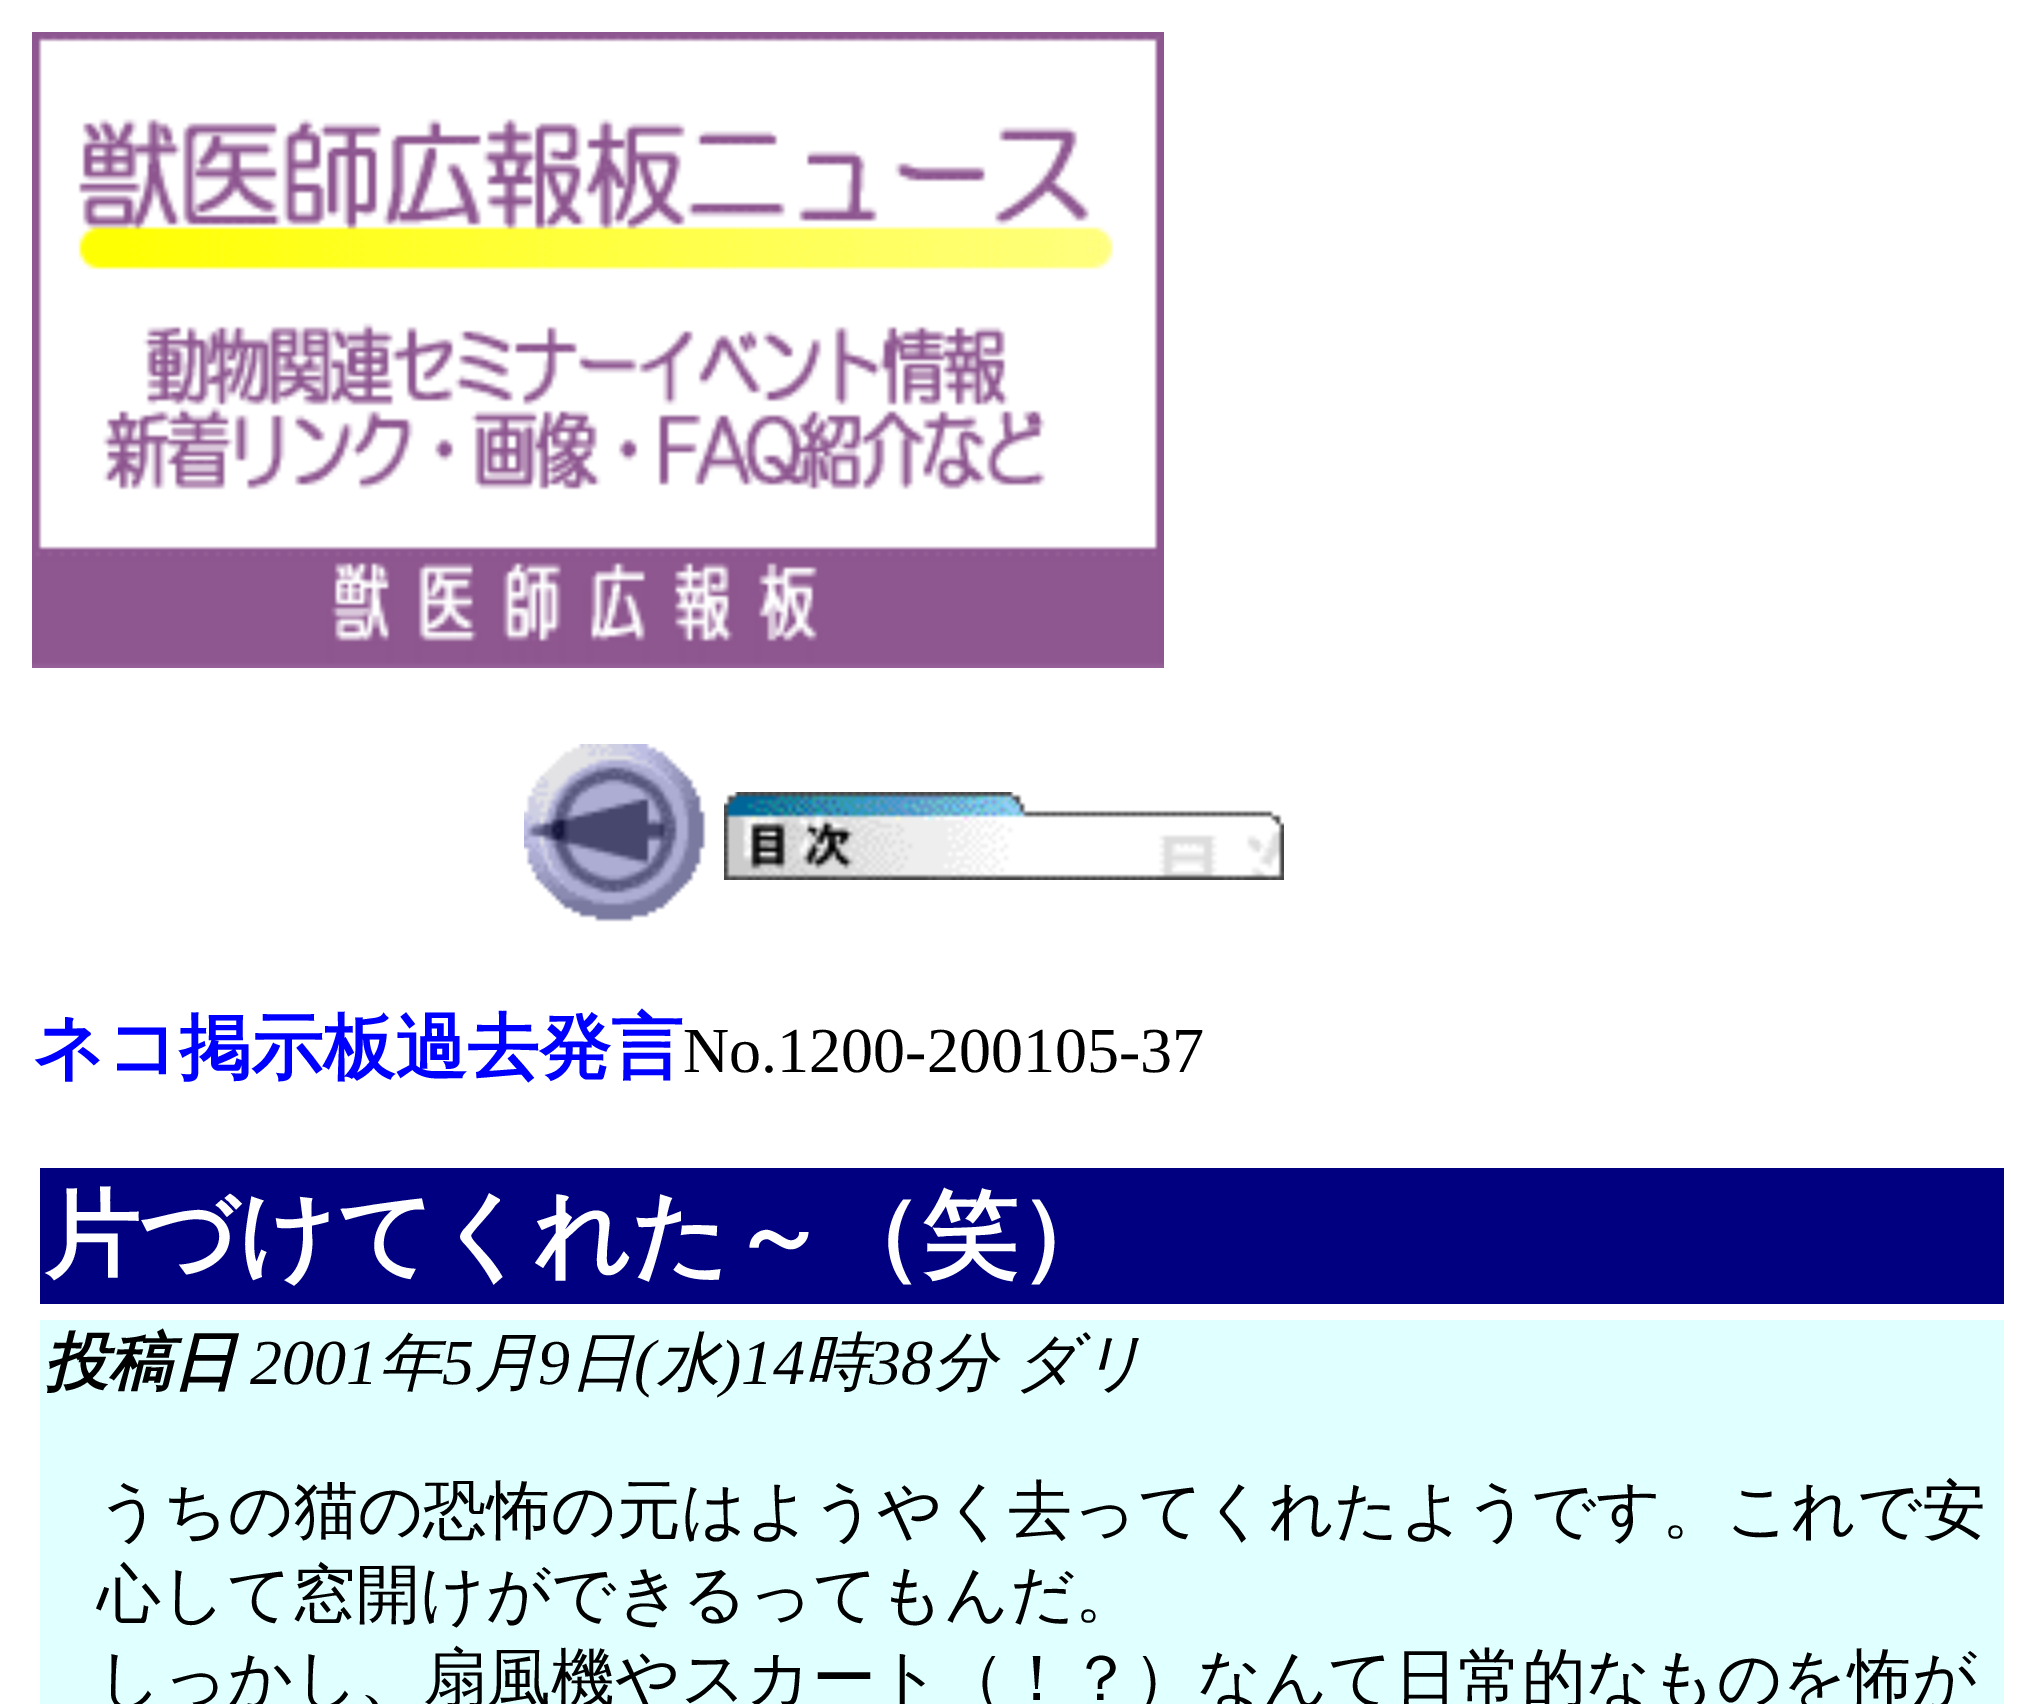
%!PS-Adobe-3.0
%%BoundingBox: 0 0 2041 1704
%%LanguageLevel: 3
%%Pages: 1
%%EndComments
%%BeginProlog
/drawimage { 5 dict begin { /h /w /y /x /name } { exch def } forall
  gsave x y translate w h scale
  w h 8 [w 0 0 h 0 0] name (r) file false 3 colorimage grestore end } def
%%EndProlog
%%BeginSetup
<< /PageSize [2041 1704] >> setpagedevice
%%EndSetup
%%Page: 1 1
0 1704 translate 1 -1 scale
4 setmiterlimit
1 setgray
0 0 2041 1704 rectfill
(images/1.raw) 32 32 1132 636 drawimage
(images/2.raw) 524 744 182 178 drawimage
(images/3.raw) 724 792 560 88 drawimage
0 0 0.502 setrgbcolor
40 1168 1964 136 rectfill
0.878 1 1 setrgbcolor
40 1320 1964 384 rectfill
/WenQuanYiZenHei-Bold [72 0 0 -72 0 0] selectfont
0 0 1 setrgbcolor
32 1072 moveto (ネコ掲示板過去発言) show
/LiberationSerif-Regular [64 0 0 -64 0 0] selectfont
0 setgray
683 1072 moveto (No.1200-200105-37) show
/WenQuanYiZenHei-Bold [96 0 0 -96 0 0] selectfont
1 setgray
44 1268 moveto (片づけてくれた～（笑）) show
/WenQuanYiZenHei-BoldItalic [64 0 0 -64 0 0] selectfont
0 setgray
44 1384 moveto (投稿日) show
/LiberationSerif-Italic [64 0 0 -64 0 0] selectfont
250 1384 moveto (2001) show
/WenQuanYiZenHei-MediumItalic [64 0 0 -64 0 0] selectfont
378 1384 moveto (年) show
/LiberationSerif-Italic [64 0 0 -64 0 0] selectfont
442 1384 moveto (5) show
/WenQuanYiZenHei-MediumItalic [64 0 0 -64 0 0] selectfont
474 1384 moveto (月) show
/LiberationSerif-Italic [64 0 0 -64 0 0] selectfont
538 1384 moveto (9) show
/WenQuanYiZenHei-MediumItalic [64 0 0 -64 0 0] selectfont
570 1384 moveto (日) show
/LiberationSerif-Italic [64 0 0 -64 0 0] selectfont
634 1384 moveto (\() show
/WenQuanYiZenHei-MediumItalic [64 0 0 -64 0 0] selectfont
656 1384 moveto (水) show
/LiberationSerif-Italic [64 0 0 -64 0 0] selectfont
720 1384 moveto (\)14) show
/WenQuanYiZenHei-MediumItalic [64 0 0 -64 0 0] selectfont
805 1384 moveto (時) show
/LiberationSerif-Italic [64 0 0 -64 0 0] selectfont
869 1384 moveto (38) show
/WenQuanYiZenHei-MediumItalic [64 0 0 -64 0 0] selectfont
933 1384 moveto -2 0 32 (分 ダリ) widthshow
/WenQuanYiZenHei-Medium [64 0 0 -64 0 0] selectfont
97 1532 moveto (うちの猫の恐怖の元はようやく去ってくれたようです。これで安) show
97 1616 moveto (心して窓開けができるってもんだ。) show
97 1700 moveto (しっかし、扇風機やスカート（！？）なんて日常的なものを怖が) show
showpage
%%EOF
